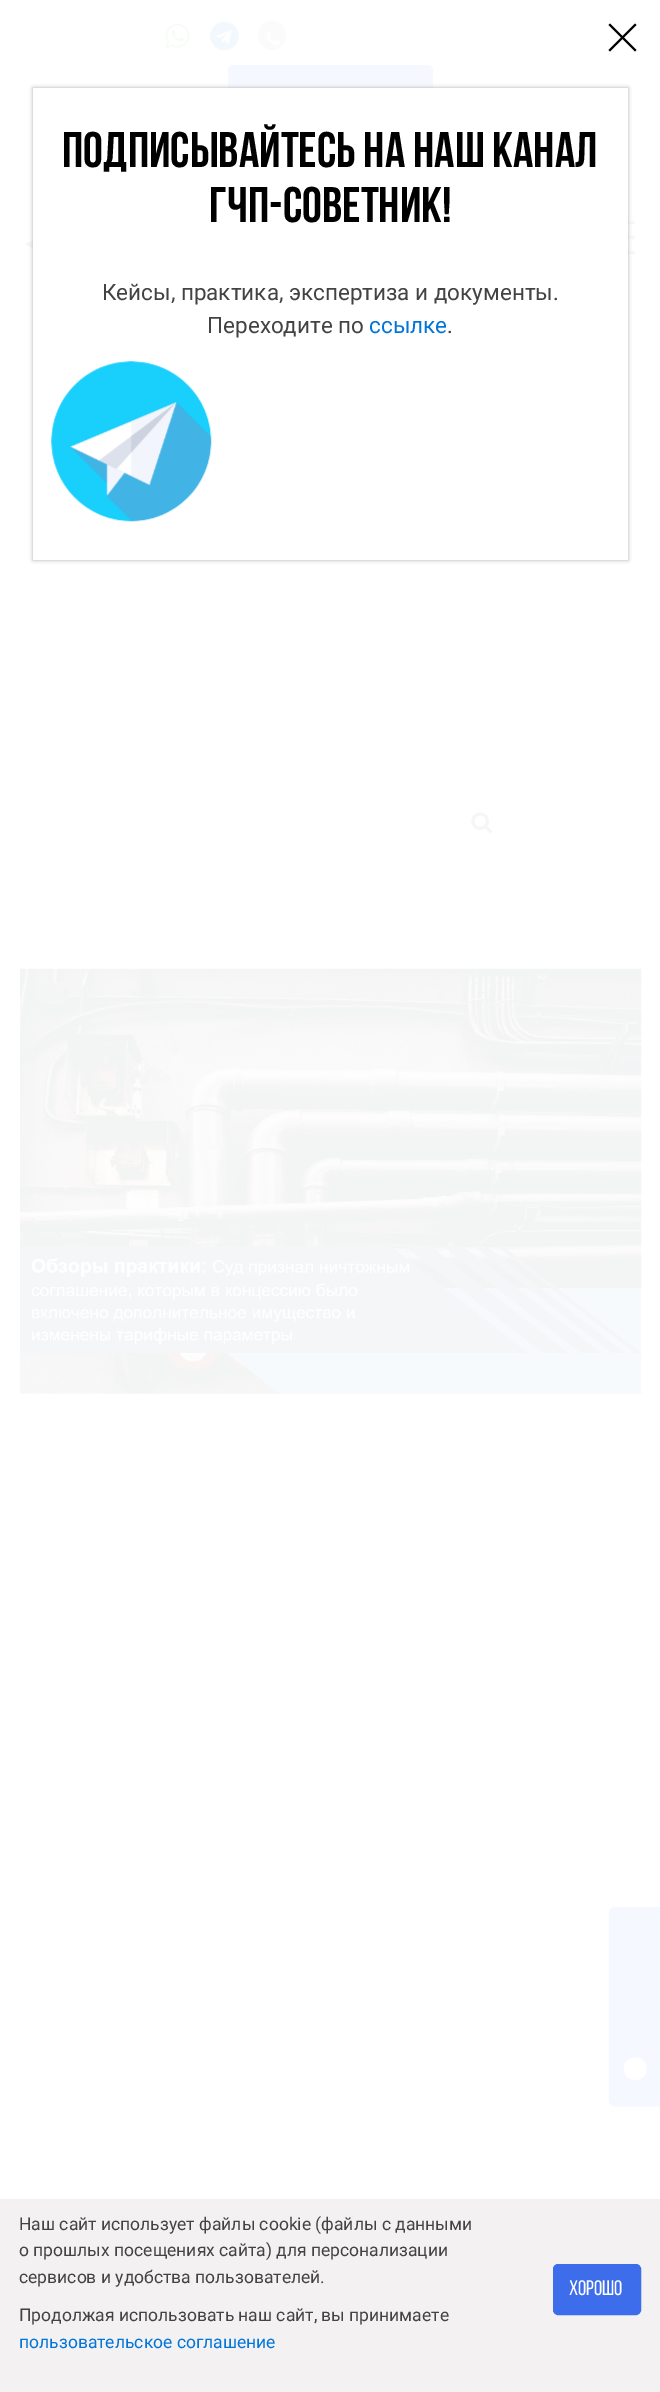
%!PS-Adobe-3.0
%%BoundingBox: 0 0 660 2392
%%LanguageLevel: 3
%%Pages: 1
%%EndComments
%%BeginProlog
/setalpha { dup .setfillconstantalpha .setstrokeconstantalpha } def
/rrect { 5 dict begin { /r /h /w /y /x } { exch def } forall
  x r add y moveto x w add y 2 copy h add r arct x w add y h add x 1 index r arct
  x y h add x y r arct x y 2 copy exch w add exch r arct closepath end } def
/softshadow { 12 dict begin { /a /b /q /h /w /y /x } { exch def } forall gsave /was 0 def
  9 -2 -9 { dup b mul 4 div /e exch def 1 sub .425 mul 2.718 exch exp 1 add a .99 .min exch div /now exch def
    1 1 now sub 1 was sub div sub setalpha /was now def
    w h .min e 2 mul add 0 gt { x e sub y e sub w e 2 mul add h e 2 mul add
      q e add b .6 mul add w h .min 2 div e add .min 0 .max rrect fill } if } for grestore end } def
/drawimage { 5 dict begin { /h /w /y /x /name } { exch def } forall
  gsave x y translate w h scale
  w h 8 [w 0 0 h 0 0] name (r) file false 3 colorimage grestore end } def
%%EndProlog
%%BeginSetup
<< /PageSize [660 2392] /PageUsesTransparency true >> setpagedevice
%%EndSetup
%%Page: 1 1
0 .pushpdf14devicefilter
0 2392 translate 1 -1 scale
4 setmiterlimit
1 setgray
0 0 660 2392 rectfill
(images/1.raw) 165 23 25 26 drawimage
(images/2.raw) 210 21 29 30 drawimage
0.984 setgray
258 21 28 29 14 rrect fill
(images/3.raw) 266 31 14 14 drawimage
0.961 0.973 0.996 setrgbcolor
228 65 205 48 5 rrect fill
(images/4.raw) 25 240 8 9 drawimage
628 236 7 3 rectfill
628 221 7 3 rectfill
628 251 7 3 rectfill
0 setgray
newpath 635 23.5 moveto 636.5 25 lineto 610 51.5 lineto 608.5 50 lineto closepath fill
newpath 608.5 25 moveto 610 23.5 lineto 636.5 50 lineto 635 51.5 lineto closepath fill
0.667 setgray
33 88 595 472 0 2 1 softshadow
1 setgray
33 88 595 472 rectfill
(images/5.raw) 51 361 161 161 drawimage
(images/6.raw) 471 812 22 22 drawimage
(images/7.raw) 20 968 622 426 drawimage
0.961 0.973 0.996 setrgbcolor
newpath 609 2100 moveto 609 1914 lineto 609 1910 612 1907 615 1907 curveto 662 1907 lineto 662 2106 lineto 615 2106 lineto 612 2106 609 2104 609 2100 curveto closepath fill
1.2 setlinewidth
newpath 609.5 2100 moveto 609.5 1913.5 lineto 609.5 1910.5 612 1908 615 1908 curveto 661.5 1908 lineto 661.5 2106 lineto 615 2106 lineto 612 2106 609.5 2103.5 609.5 2100 curveto closepath stroke
1 setgray
newpath 624 2069 moveto 624 2054 646.5 2054 646.5 2069 curveto 646.5 2083.5 624 2083.5 624 2069 curveto closepath fill
0.953 0.945 0.945 setrgbcolor
0 2199 660 193 rectfill
0.239 0.427 0.922 setrgbcolor
553.5 2264.5 87 50 4.5 rrect gsave fill grestore
1 setlinewidth
stroke
/BebasNeue-Bold [50 0 0 -50 0 0] selectfont
0 setgray
62 167 moveto (Подписывайтесь на наш канал) show
209 222 moveto (ГЧП-советник!) show
/Roboto-Regular [22.5 0 0 -22.5 0 0] selectfont
0.267 0.263 0.263 setrgbcolor
102 300 moveto (Кейсы, практика, экспертиза и документы.) show
207 333 moveto (Переходите по) show
0.008 0.459 0.847 setrgbcolor
369 333 moveto (ссылке) show
0.267 0.263 0.263 setrgbcolor
447 333 moveto (.) show
/Roboto-Regular [17.5 0 0 -17.5 0 0] selectfont
19 2230 moveto (Наш сайт использует файлы cookie \(файлы с данными) show
19 2256 moveto (о прошлых посещениях сайта\) для персонализации) show
19 2283 moveto (сервисов и удобства пользователей.) show
19 2321 moveto (Продолжая использовать наш сайт, вы принимаете) show
0.008 0.459 0.847 setrgbcolor
19 2348 moveto (пользовательское соглашение) show
/BebasNeue-Regular [21 0 0 -21 0 0] selectfont
1 setgray
569 2295 moveto (Хорошо) show
.poppdf14devicefilter showpage
%%EOF
